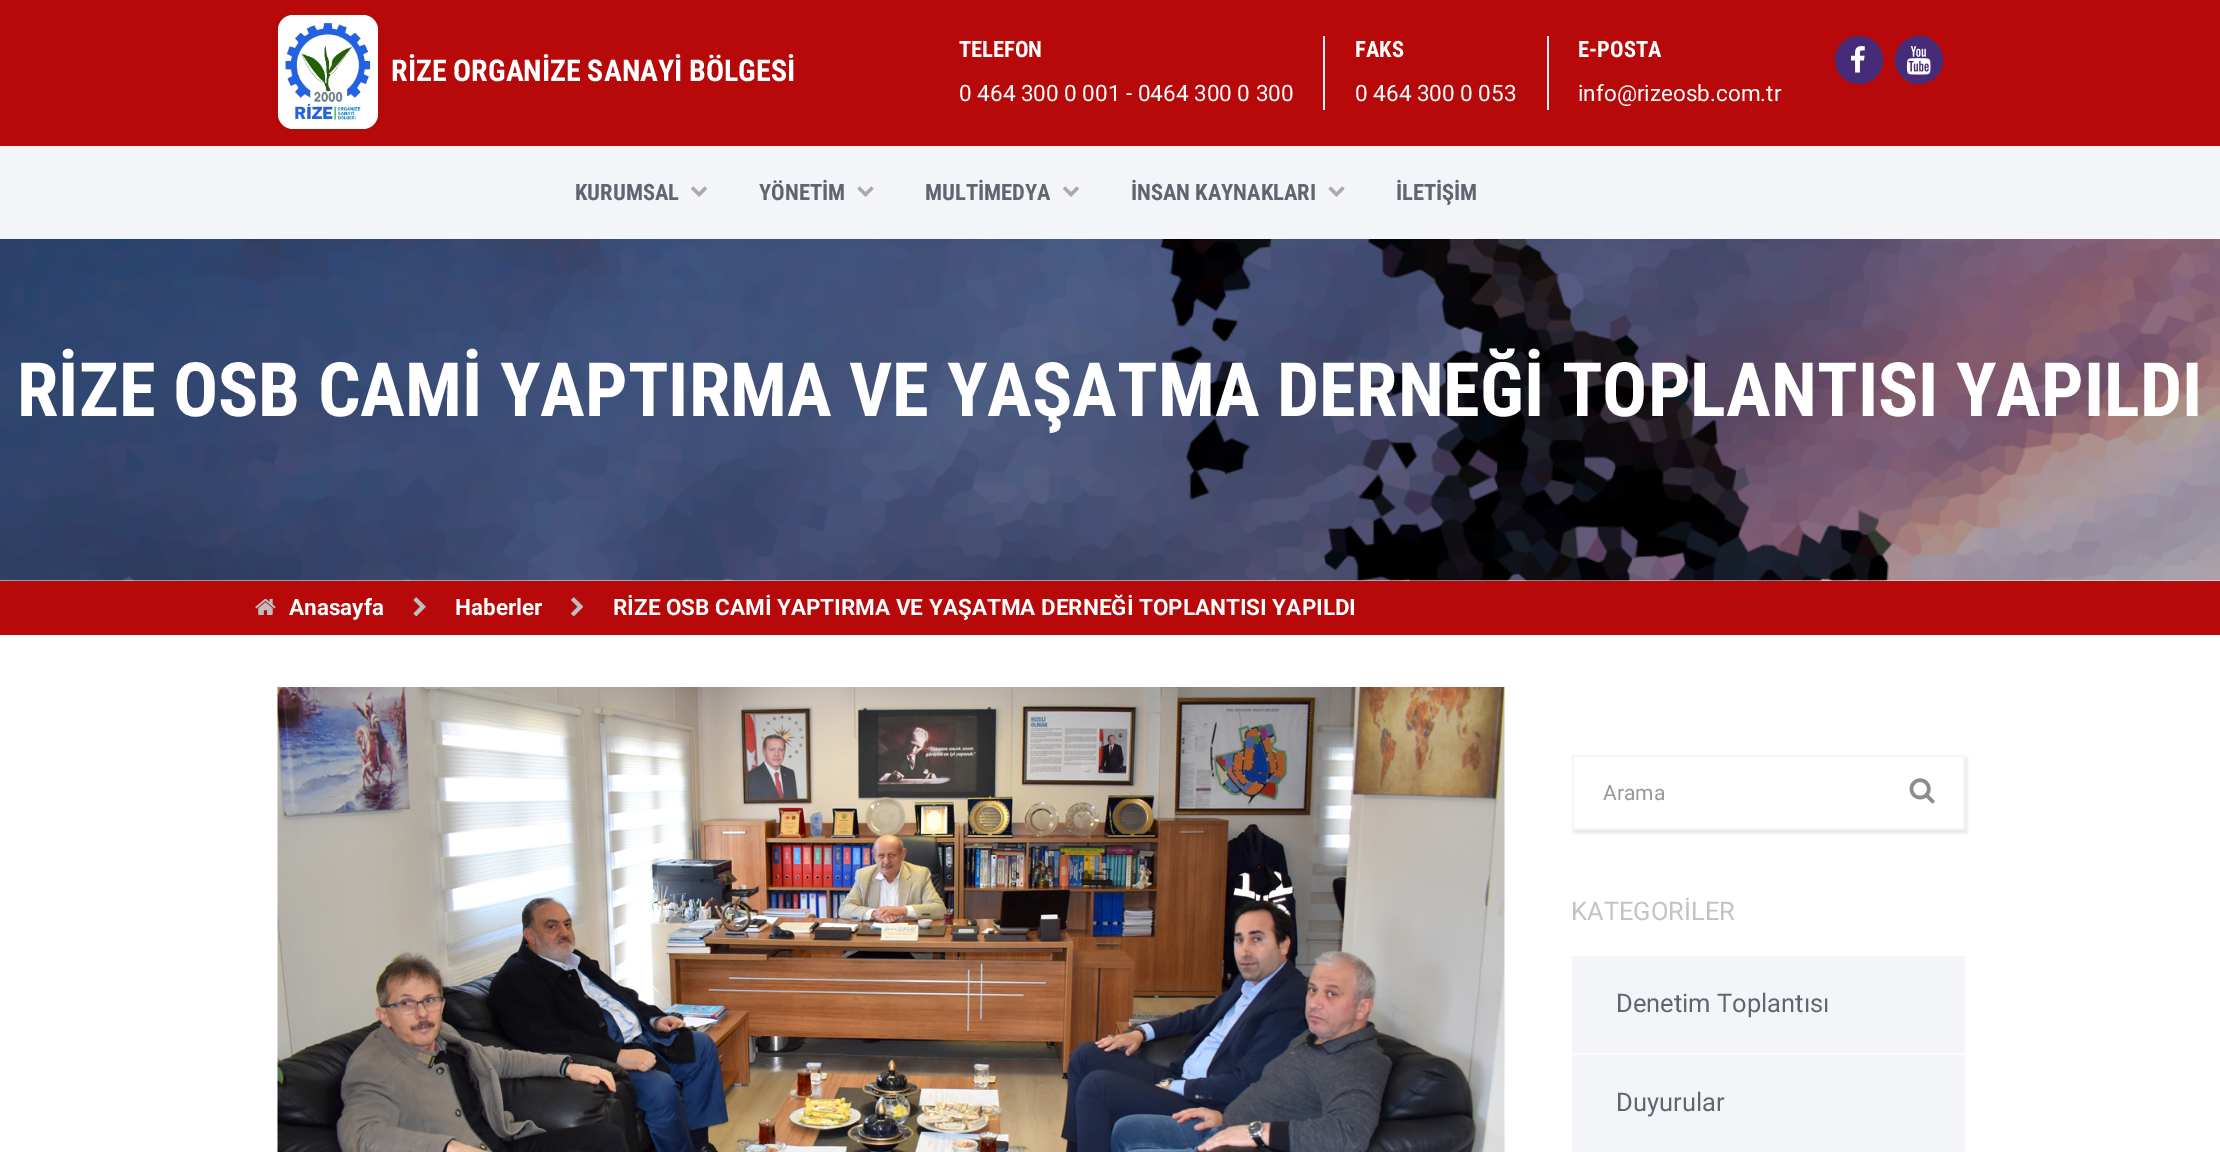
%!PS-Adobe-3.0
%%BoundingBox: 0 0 2220 1152
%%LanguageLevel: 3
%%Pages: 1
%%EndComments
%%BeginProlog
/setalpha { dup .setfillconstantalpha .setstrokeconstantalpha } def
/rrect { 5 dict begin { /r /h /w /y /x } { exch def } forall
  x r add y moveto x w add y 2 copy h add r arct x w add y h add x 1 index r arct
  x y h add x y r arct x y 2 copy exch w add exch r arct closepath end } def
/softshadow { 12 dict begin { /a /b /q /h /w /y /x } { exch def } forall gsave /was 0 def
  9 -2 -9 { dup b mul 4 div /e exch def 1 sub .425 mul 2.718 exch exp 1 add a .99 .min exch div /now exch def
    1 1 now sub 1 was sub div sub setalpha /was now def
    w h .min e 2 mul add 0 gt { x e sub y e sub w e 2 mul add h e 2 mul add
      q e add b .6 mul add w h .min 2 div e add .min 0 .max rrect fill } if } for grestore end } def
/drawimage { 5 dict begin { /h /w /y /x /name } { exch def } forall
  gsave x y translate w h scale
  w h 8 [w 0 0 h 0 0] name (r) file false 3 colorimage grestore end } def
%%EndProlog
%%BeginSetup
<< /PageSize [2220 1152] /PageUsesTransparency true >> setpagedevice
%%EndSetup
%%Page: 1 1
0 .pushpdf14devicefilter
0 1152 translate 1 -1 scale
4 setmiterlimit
1 setgray
0 0 2220 1152 rectfill
0.718 0.035 0.035 setrgbcolor
0 0 2220 146 rectfill
1 setgray
278 15 100 114 15 rrect fill
(images/1.raw) 285 23 86 97 drawimage
0.914 0.925 0.949 setrgbcolor
1323 36 2 74 rectfill
1547 36 2 74 rectfill
0.275 0.169 0.475 setrgbcolor
newpath 1859 60 24 0 360 arc closepath fill
(images/2.raw) 1851 46 14 27 drawimage
newpath 1919 60 24 0 360 arc closepath fill
(images/3.raw) 1906 46 25 29 drawimage
0.957 0.961 0.973 setrgbcolor
0 146 2220 93 rectfill
(images/4.raw) 691 186 16 11 drawimage
(images/5.raw) 857 186 17 11 drawimage
(images/4.raw) 1063 186 16 11 drawimage
(images/5.raw) 1328 186 17 11 drawimage
(images/6.raw) 0 239 2220 342 drawimage
0.718 0.035 0.035 setrgbcolor
0 581 2220 54 rectfill
(images/7.raw) 255 598 21 17 drawimage
(images/8.raw) 413 597 13 20 drawimage
(images/9.raw) 571 597 13 20 drawimage
(images/10.raw) 277 687 1228 465 drawimage
0 setgray
1574 758 393 75 0 1.5 0.1 softshadow
1 setgray
newpath 1573 756 moveto 1964 756 lineto 1964 829 lineto 1573 829 lineto closepath gsave fill grestore
0.965 setgray
2 setlinewidth
stroke
(images/11.raw) 1909 778 26 26 drawimage
0.957 0.961 0.973 setrgbcolor
1572 956 393 196 rectfill
0.988 0.988 0.992 setrgbcolor
1572 1053 393 2 rectfill
/RobotoCondensed-Bold [30 0 0 -30 0 0] selectfont
1 setgray
391 81 moveto (RİZE ORGANİZE SANAYİ BÖLGESİ) show
/RobotoCondensed-Bold [22.5 0 0 -22.5 0 0] selectfont
959 57 moveto (TELEFON) show
/Roboto-Regular [22.5 0 0 -22.5 0 0] selectfont
959 101 moveto (0 464 300 0 001 - 0464 300 0 300) show
/RobotoCondensed-Bold [22.5 0 0 -22.5 0 0] selectfont
1355 57 moveto (FAKS) show
/Roboto-Regular [22.5 0 0 -22.5 0 0] selectfont
1355 101 moveto (0 464 300 0 053) show
/RobotoCondensed-Bold [22.5 0 0 -22.5 0 0] selectfont
1578 57 moveto (E-POSTA) show
/Roboto-Regular [22.5 0 0 -22.5 0 0] selectfont
1578 101 moveto (info@rizeosb.com.tr) show
/RobotoCondensed-Bold [22.5 0 0 -22.5 0 0] selectfont
0.38 0.396 0.435 setrgbcolor
575 200 moveto (KURUMSAL) show
759 200 moveto (YÖNETİM) show
925 200 moveto (MULTİMEDYA) show
1131 200 moveto (İNSAN KAYNAKLARI) show
1396 200 moveto (İLETİŞİM) show
/RobotoCondensed-Bold [75 0 0 -75 0 0] selectfont
1 setgray
17 416 moveto (RİZE OSB CAMİ YAPTIRMA VE YAŞATMA DERNEĞİ TOPLANTISI YAPILDI) show
/Roboto-Bold [22.5 0 0 -22.5 0 0] selectfont
289 615 moveto (Anasayfa) show
455 615 moveto (Haberler) show
613 615 moveto (RİZE OSB CAMİ YAPTIRMA VE YAŞATMA DERNEĞİ TOPLANTISI YAPILDI) show
/Roboto-Regular [21 0 0 -21 0 0] selectfont
0.6 setgray
1603 800 moveto (Arama) show
/Roboto-Regular [25.5 0 0 -25.5 0 0] selectfont
0.753 0.769 0.78 setrgbcolor
1571 920 moveto (KATEGORİLER) show
0.38 0.396 0.435 setrgbcolor
1616 1012 moveto (Denetim Toplantısı) show
1616 1111 moveto (Duyurular) show
.poppdf14devicefilter showpage
%%EOF
